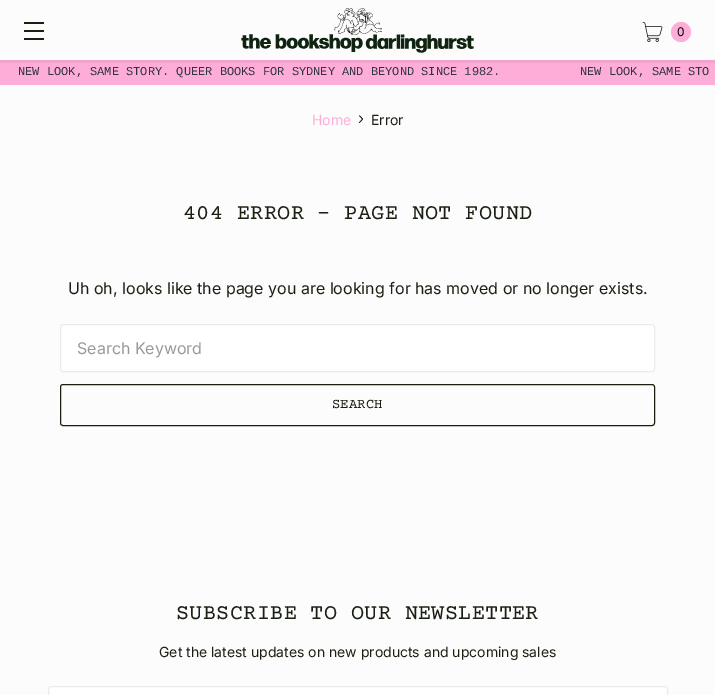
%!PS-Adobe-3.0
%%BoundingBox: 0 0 715 695
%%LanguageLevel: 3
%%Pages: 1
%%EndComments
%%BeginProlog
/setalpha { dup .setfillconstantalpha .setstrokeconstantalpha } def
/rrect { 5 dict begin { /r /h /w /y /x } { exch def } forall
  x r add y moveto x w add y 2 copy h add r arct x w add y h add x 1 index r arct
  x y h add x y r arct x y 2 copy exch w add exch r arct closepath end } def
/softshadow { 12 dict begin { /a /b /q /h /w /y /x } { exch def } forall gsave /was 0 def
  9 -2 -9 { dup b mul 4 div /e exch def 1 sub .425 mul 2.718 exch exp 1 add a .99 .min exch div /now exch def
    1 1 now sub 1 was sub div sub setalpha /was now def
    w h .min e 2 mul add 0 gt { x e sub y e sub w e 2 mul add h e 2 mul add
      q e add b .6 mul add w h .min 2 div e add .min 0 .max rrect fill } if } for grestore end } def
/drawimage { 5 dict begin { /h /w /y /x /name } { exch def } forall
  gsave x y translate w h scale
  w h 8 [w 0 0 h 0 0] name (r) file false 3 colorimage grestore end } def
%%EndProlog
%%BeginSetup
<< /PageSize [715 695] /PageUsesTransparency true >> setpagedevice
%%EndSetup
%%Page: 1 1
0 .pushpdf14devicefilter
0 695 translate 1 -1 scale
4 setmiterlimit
0.988 setgray
0 0 715 695 rectfill
0.996 0.675 0.847 setrgbcolor
0 60 715 25 rectfill
gsave
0 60 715 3 rectclip
0 setgray
-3 -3 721 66 0 1 0.06 softshadow
grestore
0.098 0.125 0.071 setrgbcolor
24 30 20 2 rectfill
24 22 20 2 rectfill
24 38 20 2 rectfill
(images/1.raw) 241 8 233 45 drawimage
(images/2.raw) 642 22 21 20 drawimage
0.996 0.675 0.847 setrgbcolor
newpath 681 32 10 0 360 arc closepath fill
(images/3.raw) 358 115 5 8 drawimage
1 setgray
60.5 324.5 594 47 2.5 rrect gsave fill grestore
0.922 setgray
stroke
0.098 0.125 0.071 setrgbcolor
60.5 384.5 594 41 2.5 rrect stroke
1 setgray
48.5 686.5 619 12 2.5 rrect gsave fill grestore
0.922 setgray
stroke
/Inter-Regular [12 0 0 -12 0 0] selectfont
0 setgray
677 36 moveto (0) show
/LiberationMono-Regular [12 0 0 -12 0 0] selectfont
0.192 0.204 0.251 setrgbcolor
18 75 moveto (NEW LOOK, SAME STORY. QUEER BOOKS FOR SYDNEY AND BEYOND SINCE 1982.) show
580 75 moveto (NEW LOOK, SAME STO) show
/Inter-Regular [14 0 0 -14 0 0] selectfont
0.996 0.675 0.847 setrgbcolor
312 125 moveto (Home) show
0.098 0.125 0.071 setrgbcolor
371 125 moveto (Error) show
/CourierPrime-Regular [22 0 0 -22 0 0] selectfont
183 219 moveto 0.25 0 (404 ERROR - PAGE NOT FOUND) ashow
/Inter-Regular [16 0 0 -16 0 0] selectfont
68 294 moveto (Uh oh, looks like the page you are looking for has moved or no longer exists.) show
0.6 setgray
77 354 moveto (Search Keyword) show
/CourierPrime-Regular [14 0 0 -14 0 0] selectfont
0.098 0.125 0.071 setrgbcolor
332 408 moveto (SEARCH) show
/CourierPrime-Regular [22 0 0 -22 0 0] selectfont
176 619 moveto 0.25 0 (SUBSCRIBE TO OUR NEWSLETTER) ashow
/Inter-Regular [14 0 0 -14 0 0] selectfont
159 657 moveto (Get the latest updates on new products and upcoming sales) show
.poppdf14devicefilter showpage
%%EOF
